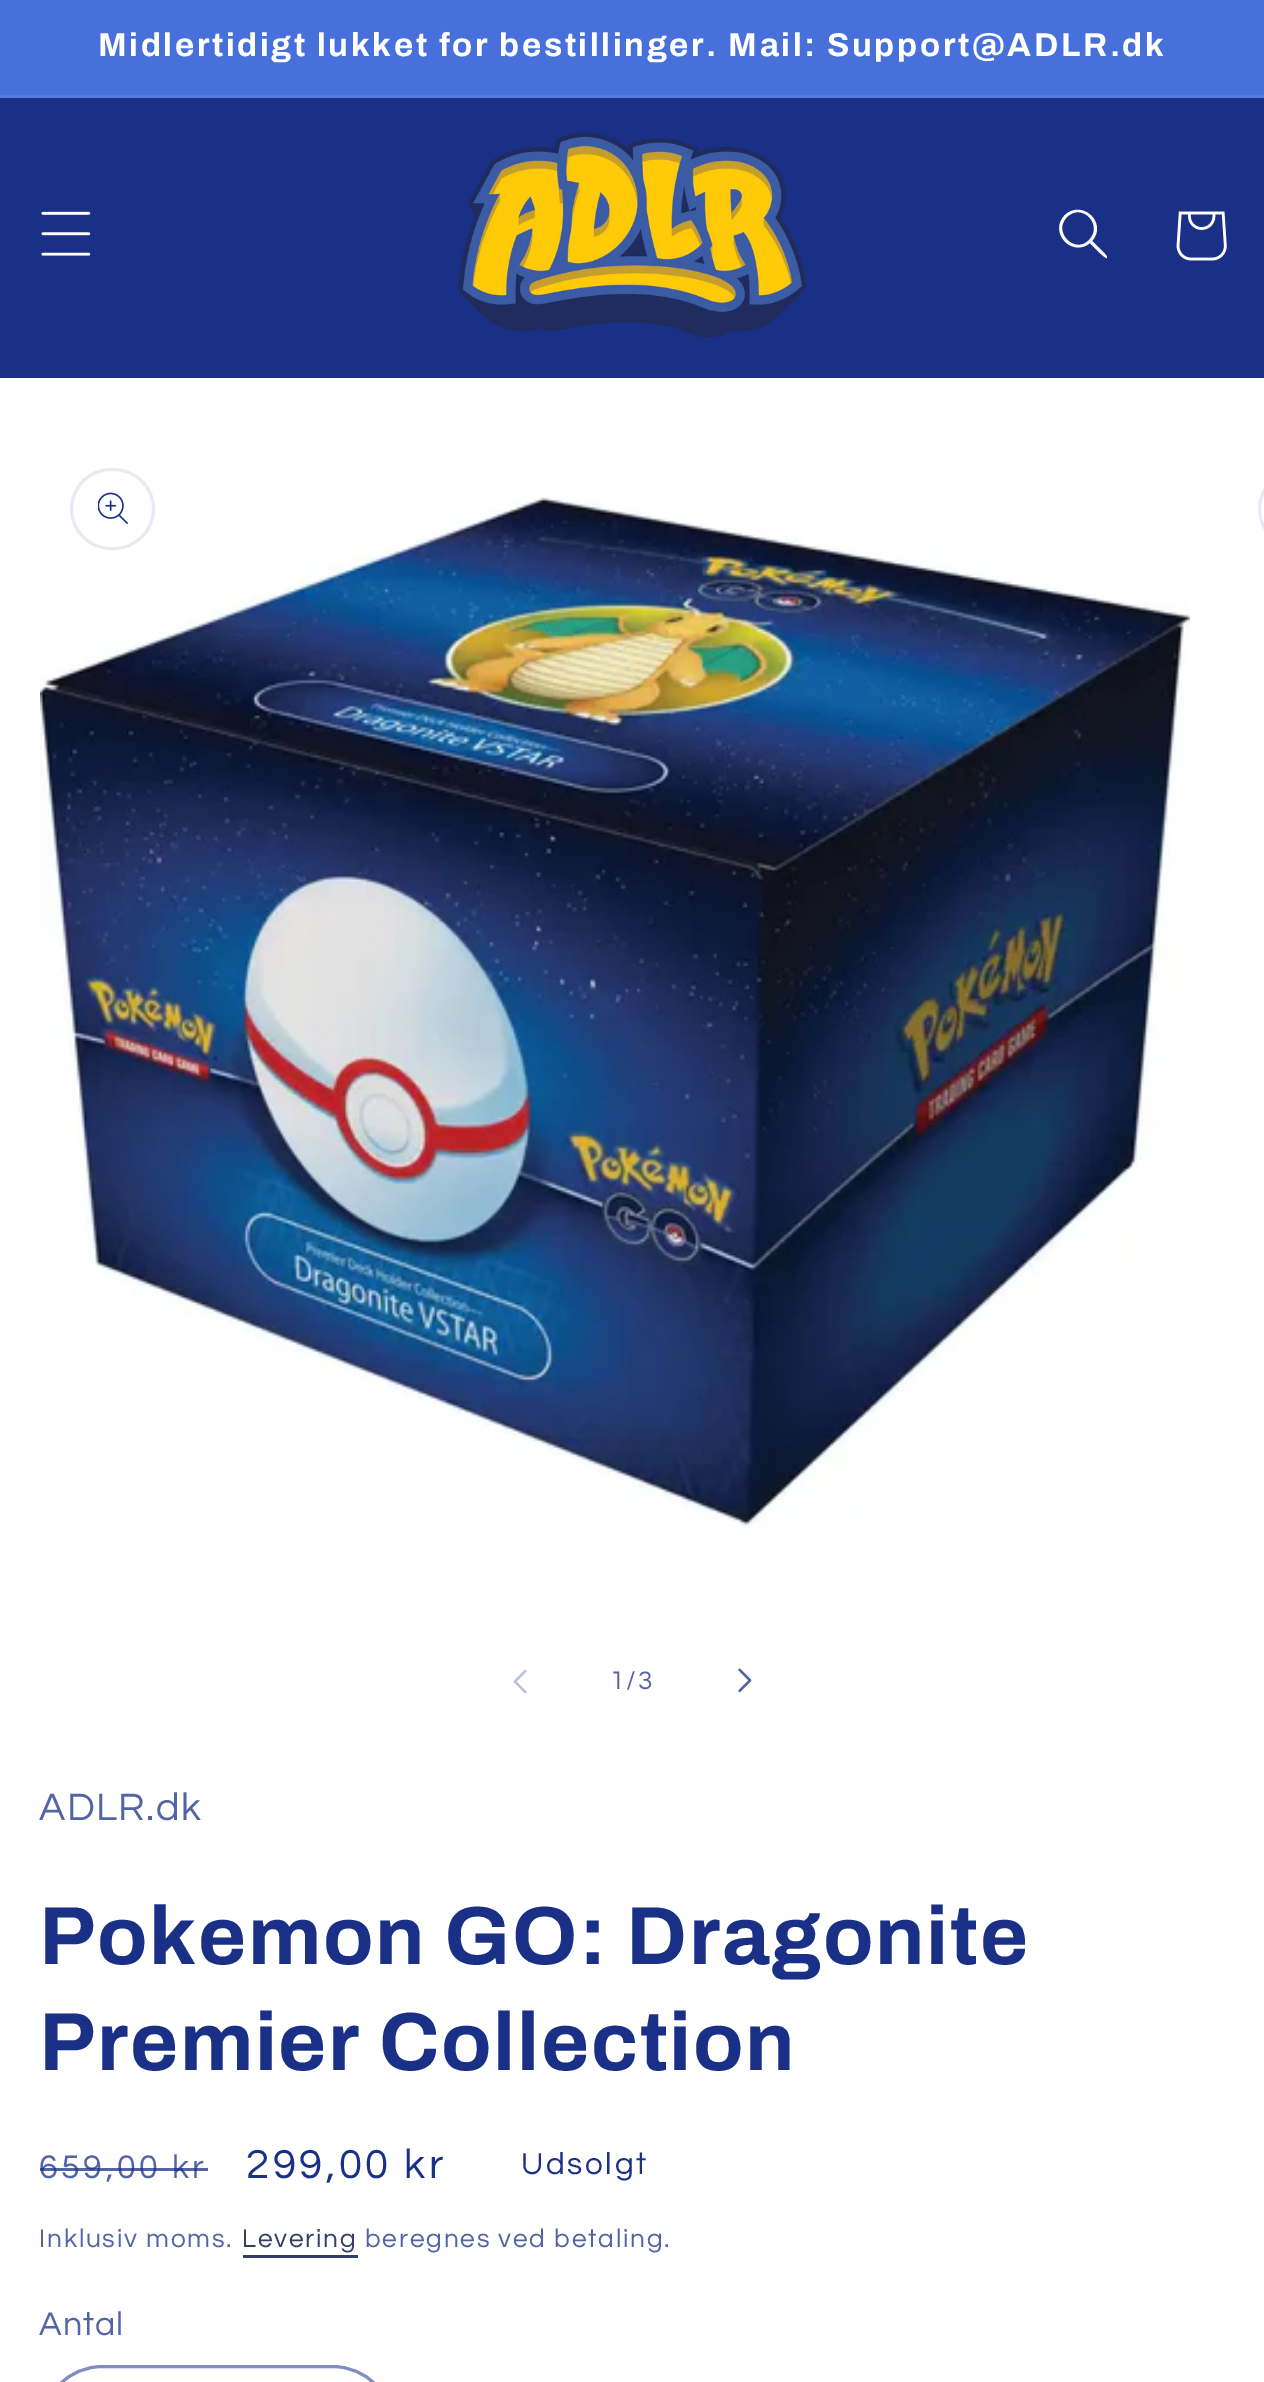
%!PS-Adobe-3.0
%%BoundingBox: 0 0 1264 2382
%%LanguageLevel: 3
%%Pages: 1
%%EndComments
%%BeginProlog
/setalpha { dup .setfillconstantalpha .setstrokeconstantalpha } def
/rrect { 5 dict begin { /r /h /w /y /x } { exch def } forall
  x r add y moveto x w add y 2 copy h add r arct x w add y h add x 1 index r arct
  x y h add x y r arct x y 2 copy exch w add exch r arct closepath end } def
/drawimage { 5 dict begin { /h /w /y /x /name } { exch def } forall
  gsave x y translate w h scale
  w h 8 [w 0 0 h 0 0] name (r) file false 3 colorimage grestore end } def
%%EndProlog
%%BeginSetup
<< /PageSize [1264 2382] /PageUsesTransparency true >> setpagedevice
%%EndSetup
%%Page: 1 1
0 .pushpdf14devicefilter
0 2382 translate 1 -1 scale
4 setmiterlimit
1 setgray
0 0 1264 2382 rectfill
0.278 0.439 0.859 setrgbcolor
0 0 1264 95 rectfill
0.337 0.482 0.871 setrgbcolor
0 95 1264 3 rectfill
0.102 0.188 0.525 setrgbcolor
0 98 1264 280 rectfill
(images/1.raw) 41 211 50 45 drawimage
(images/2.raw) 458 132 349 206 drawimage
1 setgray
newpath 1089 240 moveto 1075 255 1052 232 1067 217 curveto 1082 202 1104 225 1089 240 curveto closepath 1090 243 moveto 1072 258 1048 232 1065 215 curveto 1082 199 1108 223 1092 241 curveto 1094 243 1107 255 1107 257 curveto 1107 258 lineto 1105 259 1092 245 1090 243 curveto closepath eofill
(images/3.raw) 1176 211 51 50 drawimage
(images/5.raw) 40 497 1150 1032 drawimage
0.91 0.918 0.953 setrgbcolor
3 setlinewidth
71.5 469.5 82 79 39.5 rrect stroke
(images/4.raw) 98 492 30 32 drawimage
1259.5 469.5 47 79 39.5 rrect stroke
(images/6.raw) 513 1669 14 25 drawimage
(images/7.raw) 738 1668 14 25 drawimage
0.196 0.239 0.408 setrgbcolor
243 2255 115 3 rectfill
0.506 0.553 0.737 setrgbcolor
41.5 2366.5 352 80 61 rrect stroke
/Archivo-Bold [33 0 0 -33 0 0] selectfont
1 setgray
98 56 moveto 2.62 0 (Midlertidigt lukket for bestillinger. Mail: Support@ADLR.dk) ashow
/Questrial-Regular [26.25 0 0 -26.25 0 0] selectfont
0.325 0.392 0.643 setrgbcolor
610 1689 moveto 1.8 0 (1/3) ashow
/Questrial-Regular [39.5 0 0 -39.5 0 0] selectfont
39 1820 moveto 1.5 0 (ADLR.dk) ashow
/Archivo-Bold [82.5 0 0 -82.5 0 0] selectfont
0.102 0.188 0.525 setrgbcolor
39 1964 moveto 1.65 0 (Pokemon GO: Dragonite) ashow
39 2070 moveto 1.65 0 (Premier Collection) ashow
/Questrial-Regular [34 0 0 -34 0 0] selectfont
0.325 0.392 0.643 setrgbcolor
39 2178 moveto 3.5 0 (659,00 kr) ashow
0.75 setalpha
0.102 0.188 0.525 setrgbcolor
40 2168 168 3 rectfill
/Questrial-Regular [42 0 0 -42 0 0] selectfont
1 setalpha
246 2178 moveto 3.5 0 (299,00 kr) ashow
/Questrial-Regular [31.5 0 0 -31.5 0 0] selectfont
521 2174 moveto 2.62 0 (Udsolgt) ashow
/Questrial-Regular [26.25 0 0 -26.25 0 0] selectfont
0.325 0.392 0.643 setrgbcolor
39 2247 moveto 1.8 0 (Inklusiv moms.) ashow
0.196 0.239 0.408 setrgbcolor
242 2247 moveto 1.8 0 (Levering) ashow
0.325 0.392 0.643 setrgbcolor
365 2247 moveto 1.8 0 (beregnes ved betaling.) ashow
/Questrial-Regular [34 0 0 -34 0 0] selectfont
39 2335 moveto 1 0 (Antal) ashow
.poppdf14devicefilter showpage
%%EOF
